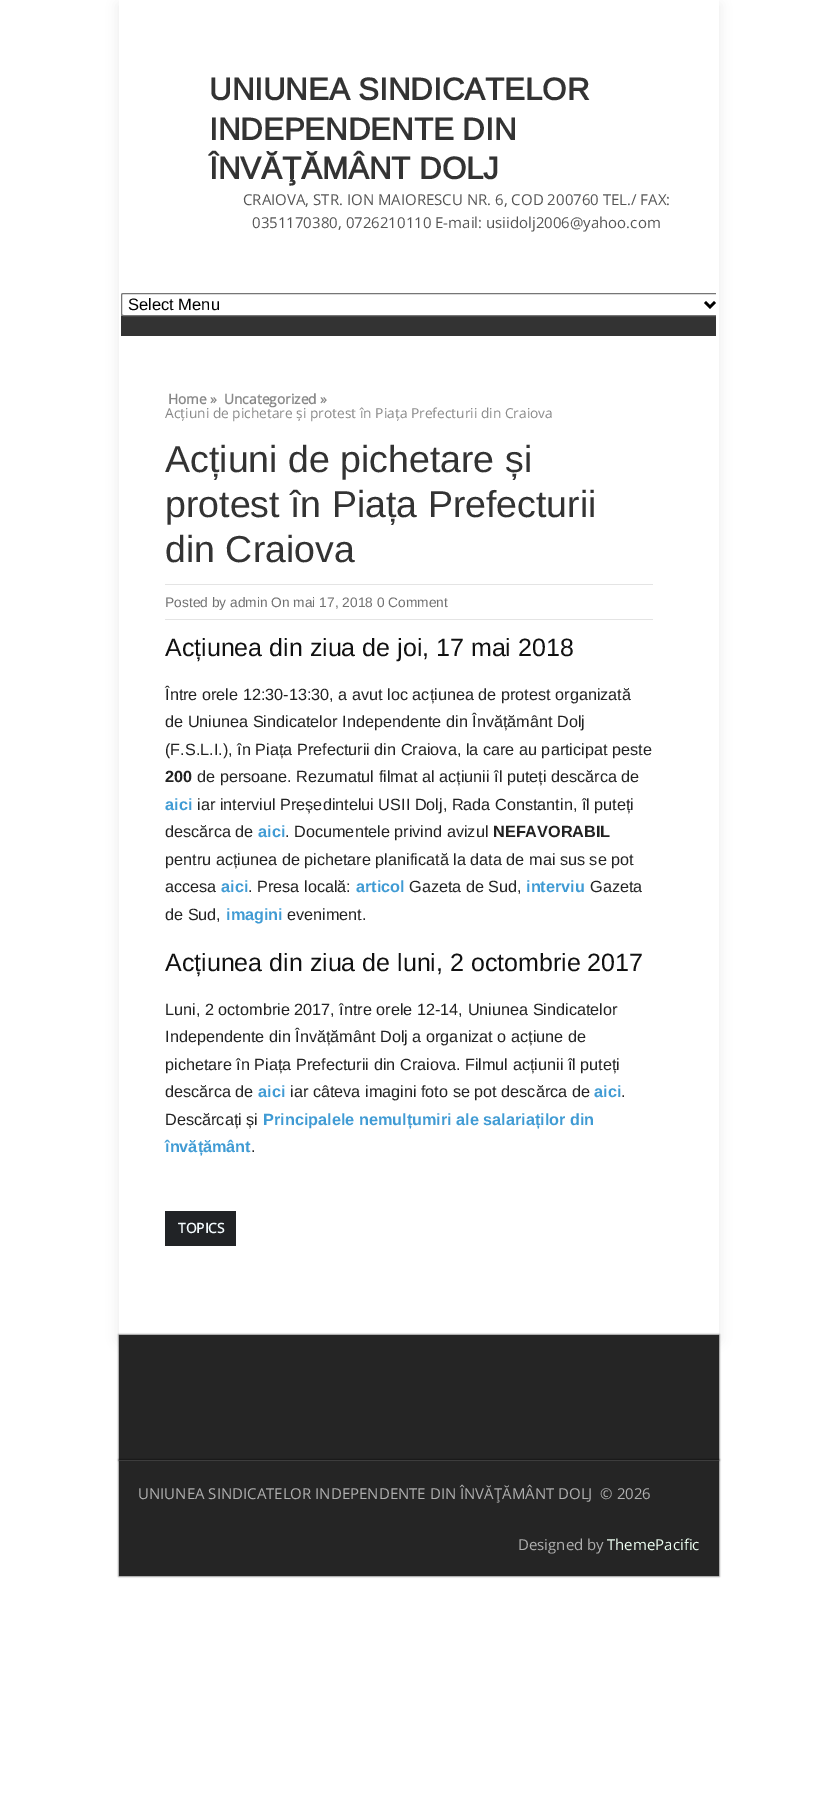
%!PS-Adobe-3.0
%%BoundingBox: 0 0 837 1813
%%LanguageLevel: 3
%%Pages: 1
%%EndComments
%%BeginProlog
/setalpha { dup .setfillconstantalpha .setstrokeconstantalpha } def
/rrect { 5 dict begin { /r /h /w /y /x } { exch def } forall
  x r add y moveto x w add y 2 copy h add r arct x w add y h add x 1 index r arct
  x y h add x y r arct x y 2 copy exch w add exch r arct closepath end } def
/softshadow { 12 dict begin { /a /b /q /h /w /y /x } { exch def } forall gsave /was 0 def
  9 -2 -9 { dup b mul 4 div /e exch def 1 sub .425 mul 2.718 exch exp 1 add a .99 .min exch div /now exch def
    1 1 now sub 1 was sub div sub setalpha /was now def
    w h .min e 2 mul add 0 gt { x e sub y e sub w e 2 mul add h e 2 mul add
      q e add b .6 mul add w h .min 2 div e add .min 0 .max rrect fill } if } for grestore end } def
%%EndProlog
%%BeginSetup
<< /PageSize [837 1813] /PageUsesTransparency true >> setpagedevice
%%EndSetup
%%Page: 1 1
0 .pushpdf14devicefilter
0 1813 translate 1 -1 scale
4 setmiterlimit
1 setgray
0 0 837 1813 rectfill
0 setgray
119 5 600 1335 0 6 0.08 softshadow
1 setgray
119 0 600 1335 rectfill
0.2 setgray
newpath 123.5 293 moveto 713.5 293 lineto 715 293 716 294 716 295.5 curveto 716 336 lineto 121 336 lineto 121 295.5 lineto 121 294 122 293 123.5 293 curveto closepath fill
1 setgray
newpath 123.5 293 moveto 716 293 lineto 716 316 lineto 123.5 316 lineto 122 316 121 315 121 313.5 curveto 121 295.5 lineto 121 294 122 293 123.5 293 curveto closepath fill
gsave
121 0 595 1335 rectclip
0.463 setgray
121.5 293.5 599 22 2 rrect stroke
grestore
0 setgray
2.5 setlinewidth
newpath 705 302 moveto 710 307 lineto 715 302 lineto stroke
0.894 setgray
165 584 488 1 rectfill
165 619 488 1 rectfill
0.129 0.137 0.149 setrgbcolor
165 1211 71 35 rectfill
0 setgray
119 1335 600 125 0 1 1 softshadow
0.145 setgray
119 1335 600 125 rectfill
0 setgray
119 1460 600 116 0 1 1 softshadow
0.145 setgray
119 1461 600 115 rectfill
0.239 setgray
119 1460 600 1 rectfill
/Arimo-Bold [31.25 0 0 -31.25 0 0] selectfont
0.2 setgray
209 100 moveto (UNIUNEA SINDICATELOR) show
209 140 moveto (INDEPENDENTE DIN) show
209 179 moveto (ÎNVĂŢĂMÂNT DOLJ) show
/OpenSans-Regular [15 0 0 -15 0 0] selectfont
0.333 setgray
243 205 moveto (CRAIOVA, STR. ION MAIORESCU NR. 6, COD 200760 TEL./ FAX:) show
252 228 moveto (0351170380, 0726210110 E-mail: usiidolj2006@yahoo.com) show
/LiberationSans-Regular [16.5 0 0 -16.5 0 0] selectfont
0 setgray
128 310 moveto (Select Menu) show
/OpenSans-Bold [13.75 0 0 -13.75 0 0] selectfont
0.533 setgray
168 404 moveto (Home ») show
224 404 moveto (Uncategorized ») show
/OpenSans-Regular [13.75 0 0 -13.75 0 0] selectfont
165 418 moveto (Acțiuni de pichetare și protest în Piața Prefecturii din Craiova) show
/Arimo-Regular [37.5 0 0 -37.5 0 0] selectfont
0.2 setgray
165 472 moveto (Acțiuni de pichetare și) show
165 517 moveto (protest în Piața Prefecturii) show
165 562 moveto (din Craiova) show
/Arimo-Regular [13.75 0 0 -13.75 0 0] selectfont
0.439 setgray
165 607 moveto (Posted by admin On mai 17, 2018 0 Comment) show
/Arimo-Regular [25 0 0 -25 0 0] selectfont
0.067 setgray
165 656 moveto (Acțiunea din ziua de joi, 17 mai 2018) show
/LiberationSans-Regular [16.25 0 0 -16.25 0 0] selectfont
0.133 setgray
165 700 moveto (Între orele 12:30-13:30, a avut loc acțiunea de protest organizată) show
165 727 moveto (de Uniunea Sindicatelor Independente din Învățământ Dolj) show
165 755 moveto (\(F.S.L.I.\), în Piața Prefecturii din Craiova, la care au participat peste) show
/LiberationSans-Bold [16.25 0 0 -16.25 0 0] selectfont
165 782 moveto (200) show
/LiberationSans-Regular [16.25 0 0 -16.25 0 0] selectfont
197 782 moveto (de persoane. Rezumatul filmat al acțiunii îl puteți descărca de) show
/LiberationSans-Bold [16.25 0 0 -16.25 0 0] selectfont
0.251 0.608 0.831 setrgbcolor
165 810 moveto (aici) show
/LiberationSans-Regular [16.25 0 0 -16.25 0 0] selectfont
0.133 setgray
197 810 moveto (iar interviul Președintelui USII Dolj, Rada Constantin, îl puteți) show
165 837 moveto (descărca de) show
/LiberationSans-Bold [16.25 0 0 -16.25 0 0] selectfont
0.251 0.608 0.831 setrgbcolor
258 837 moveto (aici) show
/LiberationSans-Regular [16.25 0 0 -16.25 0 0] selectfont
0.133 setgray
285 837 moveto (. Documentele privind avizul) show
/LiberationSans-Bold [16.25 0 0 -16.25 0 0] selectfont
493 837 moveto (NEFAVORABIL) show
/LiberationSans-Regular [16.25 0 0 -16.25 0 0] selectfont
165 865 moveto (pentru acțiunea de pichetare planificată la data de mai sus se pot) show
165 892 moveto (accesa) show
/LiberationSans-Bold [16.25 0 0 -16.25 0 0] selectfont
0.251 0.608 0.831 setrgbcolor
221 892 moveto (aici) show
/LiberationSans-Regular [16.25 0 0 -16.25 0 0] selectfont
0.133 setgray
248 892 moveto (. Presa locală:) show
/LiberationSans-Bold [16.25 0 0 -16.25 0 0] selectfont
0.251 0.608 0.831 setrgbcolor
356 892 moveto (articol) show
/LiberationSans-Regular [16.25 0 0 -16.25 0 0] selectfont
0.133 setgray
409 892 moveto (Gazeta de Sud,) show
/LiberationSans-Bold [16.25 0 0 -16.25 0 0] selectfont
0.251 0.608 0.831 setrgbcolor
526 892 moveto (interviu) show
/LiberationSans-Regular [16.25 0 0 -16.25 0 0] selectfont
0.133 setgray
590 892 moveto (Gazeta) show
165 920 moveto (de Sud,) show
/LiberationSans-Bold [16.25 0 0 -16.25 0 0] selectfont
0.251 0.608 0.831 setrgbcolor
226 920 moveto (imagini) show
/LiberationSans-Regular [16.25 0 0 -16.25 0 0] selectfont
0.133 setgray
287 920 moveto (eveniment.) show
/Arimo-Regular [25 0 0 -25 0 0] selectfont
0.067 setgray
165 971 moveto (Acțiunea din ziua de luni, 2 octombrie 2017) show
/LiberationSans-Regular [16.25 0 0 -16.25 0 0] selectfont
0.133 setgray
165 1015 moveto (Luni, 2 octombrie 2017, între orele 12-14, Uniunea Sindicatelor) show
165 1042 moveto (Independente din Învățământ Dolj a organizat o acțiune de) show
165 1070 moveto (pichetare în Piața Prefecturii din Craiova. Filmul acțiunii îl puteți) show
165 1097 moveto (descărca de) show
/LiberationSans-Bold [16.25 0 0 -16.25 0 0] selectfont
0.251 0.608 0.831 setrgbcolor
258 1097 moveto (aici) show
/LiberationSans-Regular [16.25 0 0 -16.25 0 0] selectfont
0.133 setgray
290 1097 moveto (iar câteva imagini foto se pot descărca de) show
/LiberationSans-Bold [16.25 0 0 -16.25 0 0] selectfont
0.251 0.608 0.831 setrgbcolor
594 1097 moveto (aici) show
/LiberationSans-Regular [16.25 0 0 -16.25 0 0] selectfont
0.133 setgray
621 1097 moveto (.) show
165 1125 moveto (Descărcați și) show
/LiberationSans-Bold [16.25 0 0 -16.25 0 0] selectfont
0.251 0.608 0.831 setrgbcolor
263 1125 moveto (Principalele nemulțumiri ale salariaților din) show
165 1152 moveto (învățământ) show
/LiberationSans-Regular [16.25 0 0 -16.25 0 0] selectfont
0.133 setgray
251 1152 moveto (.) show
/OpenSans-Bold [13.75 0 0 -13.75 0 0] selectfont
0.957 0.988 1 setrgbcolor
178 1233 moveto (TOPICS) show
/OpenSans-Regular [15 0 0 -15 0 0] selectfont
0.686 setgray
138 1499 moveto (UNIUNEA SINDICATELOR INDEPENDENTE DIN ÎNVĂŢĂMÂNT DOLJ  © 2026) show
518 1550 moveto (Designed by) show
0.925 1 0.945 setrgbcolor
607 1550 moveto (ThemePacific) show
.poppdf14devicefilter showpage
%%EOF
